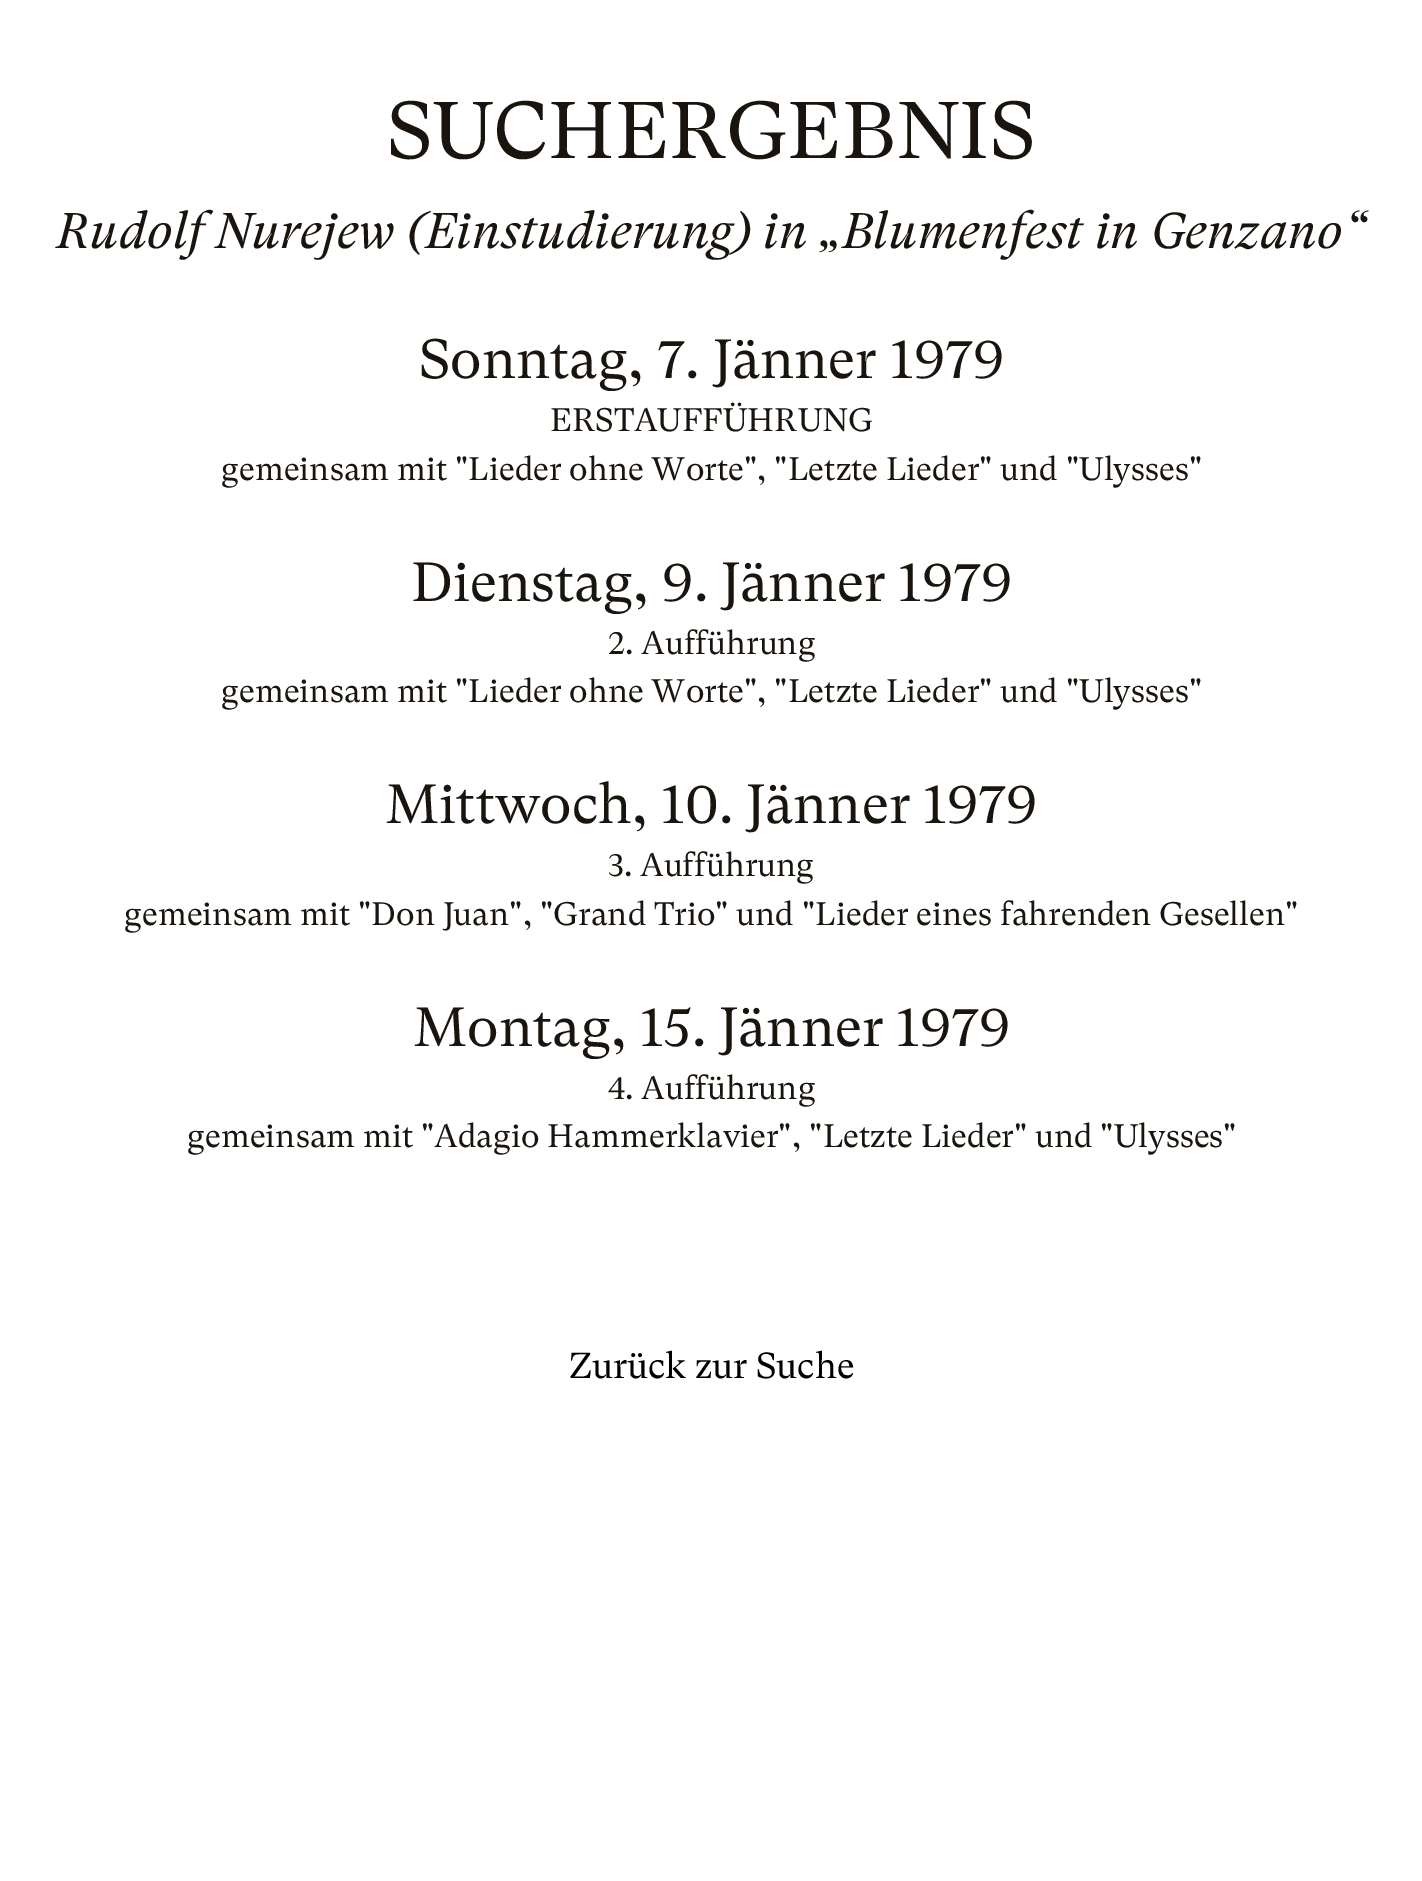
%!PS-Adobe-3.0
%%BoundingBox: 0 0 1422 1881
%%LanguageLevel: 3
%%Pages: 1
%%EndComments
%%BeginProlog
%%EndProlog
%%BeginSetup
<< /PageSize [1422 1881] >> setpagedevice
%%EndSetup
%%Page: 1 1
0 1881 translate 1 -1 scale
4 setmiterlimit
1 setgray
0 0 1422 1881 rectfill
/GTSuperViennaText-Regular [80 0 0 -80 0 0] selectfont
0.098 0.078 0.055 setrgbcolor
387 158 moveto (SUCHERGEBNIS) show
/GTSuperViennaText-Italic [50 0 0 -50 0 0] selectfont
56 248 moveto (Rudolf Nurejew \(Einstudierung\) in „Blumenfest in Genzano“) show
/GTSuperViennaText-Regular [55 0 0 -55 0 0] selectfont
419 378 moveto (Sonntag, 7. Jänner 1979) show
/GTSuperViennaText-Regular [32.4 0 0 -32.4 0 0] selectfont
550 431 moveto (ERSTAUFFÜHRUNG) show
221 480 moveto (gemeinsam mit "Lieder ohne Worte", "Letzte Lieder" und "Ulysses") show
/GTSuperViennaText-Regular [55 0 0 -55 0 0] selectfont
411 601 moveto (Dienstag, 9. Jänner 1979) show
/GTSuperViennaText-Regular [32.4 0 0 -32.4 0 0] selectfont
608 654 moveto (2. Aufführung) show
221 702 moveto (gemeinsam mit "Lieder ohne Worte", "Letzte Lieder" und "Ulysses") show
/GTSuperViennaText-Regular [55 0 0 -55 0 0] selectfont
385 823 moveto (Mittwoch, 10. Jänner 1979) show
/GTSuperViennaText-Regular [32.4 0 0 -32.4 0 0] selectfont
608 876 moveto (3. Aufführung) show
124 925 moveto (gemeinsam mit "Don Juan", "Grand Trio" und "Lieder eines fahrenden Gesellen") show
/GTSuperViennaText-Regular [55 0 0 -55 0 0] selectfont
413 1046 moveto (Montag, 15. Jänner 1979) show
/GTSuperViennaText-Regular [32.4 0 0 -32.4 0 0] selectfont
608 1099 moveto (4. Aufführung) show
187 1147 moveto (gemeinsam mit "Adagio Hammerklavier", "Letzte Lieder" und "Ulysses") show
/GTSuperViennaText-Regular [36 0 0 -36 0 0] selectfont
0 setgray
569 1378 moveto (Zurück zur Suche) show
showpage
%%EOF
